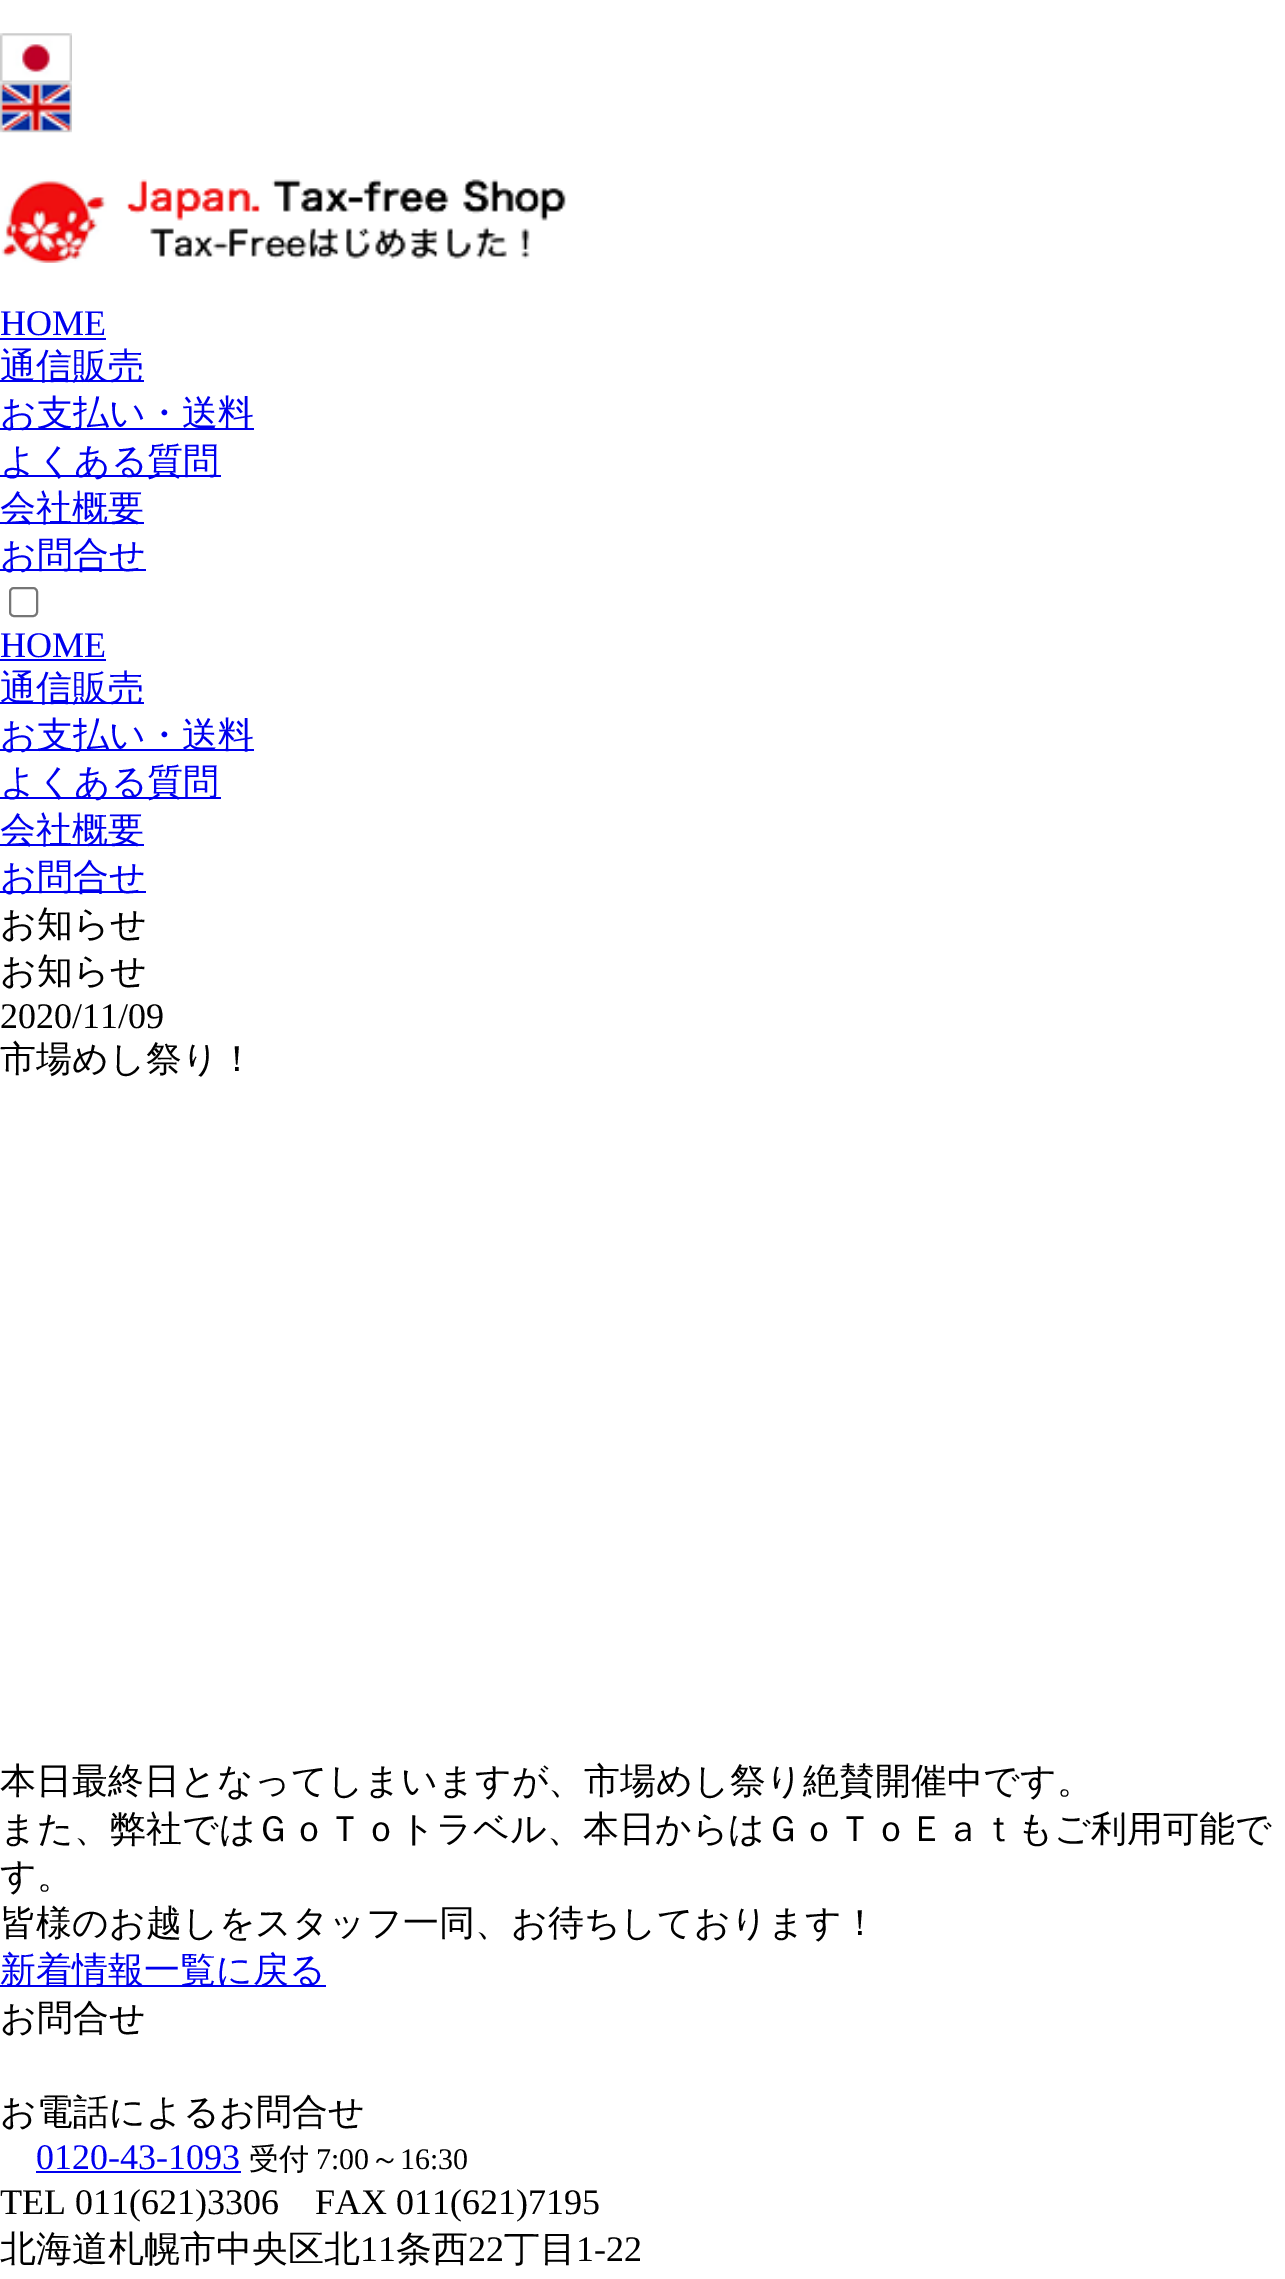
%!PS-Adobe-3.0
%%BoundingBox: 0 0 1285 2279
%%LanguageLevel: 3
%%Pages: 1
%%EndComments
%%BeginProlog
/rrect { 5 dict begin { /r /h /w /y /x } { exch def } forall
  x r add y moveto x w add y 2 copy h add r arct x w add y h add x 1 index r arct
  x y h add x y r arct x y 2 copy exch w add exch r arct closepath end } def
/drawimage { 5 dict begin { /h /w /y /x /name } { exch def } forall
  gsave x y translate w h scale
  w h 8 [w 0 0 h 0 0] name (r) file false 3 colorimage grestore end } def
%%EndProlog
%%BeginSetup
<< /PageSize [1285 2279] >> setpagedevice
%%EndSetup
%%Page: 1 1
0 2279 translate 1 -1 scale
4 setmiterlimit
1 setgray
0 0 1285 2279 rectfill
(images/1.raw) 0 33 72 50 drawimage
(images/2.raw) 0 83 72 50 drawimage
(images/3.raw) 1 179 565 84 drawimage
0 0 0.933 setrgbcolor
0 338 106 2 rectfill
0 380 144 2 rectfill
0 428 254 2 rectfill
0 475 221 2 rectfill
0 522 144 2 rectfill
0 569 146 2 rectfill
0.463 setgray
2 setlinewidth
10 588 27 28 4 rrect stroke
0 0 0.933 setrgbcolor
0 659 106 2 rectfill
0 702 144 2 rectfill
0 749 254 2 rectfill
0 797 221 2 rectfill
0 844 144 2 rectfill
0 891 146 2 rectfill
0 1985 326 2 rectfill
36 2171 205 2 rectfill
/LiberationSerif-Regular [36 0 0 -36 0 0] selectfont
0 335 moveto (HOME) show
/WenQuanYiZenHei-Medium [36 0 0 -36 0 0] selectfont
0 378 moveto (通信販売) show
0 425 moveto (お支払い・送料) show
0 473 moveto (よくある質問) show
0 520 moveto (会社概要) show
0 567 moveto (お問合せ) show
/LiberationSerif-Regular [36 0 0 -36 0 0] selectfont
0 657 moveto (HOME) show
/WenQuanYiZenHei-Medium [36 0 0 -36 0 0] selectfont
0 700 moveto (通信販売) show
0 747 moveto (お支払い・送料) show
0 794 moveto (よくある質問) show
0 842 moveto (会社概要) show
0 889 moveto (お問合せ) show
0 setgray
0 936 moveto (お知らせ) show
0 983 moveto (お知らせ) show
/LiberationSerif-Regular [36 0 0 -36 0 0] selectfont
0 1028 moveto (2020/11/09) show
/WenQuanYiZenHei-Medium [36 0 0 -36 0 0] selectfont
0 1071 moveto (市場めし祭り！) show
0 1793 moveto (本日最終日となってしまいますが、市場めし祭り絶賛開催中です。) show
0 1841 moveto (また、弊社ではＧｏＴｏトラベル、本日からはＧｏＴｏＥａｔもご利用可能で) show
0 1888 moveto (す。) show
0 1935 moveto (皆様のお越しをスタッフ一同、お待ちしております！) show
0 0 0.933 setrgbcolor
0 1982 moveto (新着情報一覧に戻る) show
0 setgray
0 2030 moveto (お問合せ) show
0 2124 moveto (お電話によるお問合せ) show
/LiberationSerif-Regular [36 0 0 -36 0 0] selectfont
0 0 0.933 setrgbcolor
36 2169 moveto (0120-43-1093) show
/WenQuanYiZenHei-Medium [30 0 0 -30 0 0] selectfont
0 setgray
249 2169 moveto (受付) show
/LiberationSerif-Regular [30 0 0 -30 0 0] selectfont
316 2169 moveto (7:00) show
/WenQuanYiZenHei-Medium [30 0 0 -30 0 0] selectfont
370 2169 moveto (～) show
/LiberationSerif-Regular [30 0 0 -30 0 0] selectfont
400 2169 moveto (16:30) show
/LiberationSerif-Regular [36 0 0 -36 0 0] selectfont
0 2214 moveto (TEL 011\(621\)3306) show
315 2214 moveto (FAX 011\(621\)7195) show
/WenQuanYiZenHei-Medium [36 0 0 -36 0 0] selectfont
0 2261 moveto (北海道札幌市中央区北) show
/LiberationSerif-Regular [36 0 0 -36 0 0] selectfont
360 2261 moveto (11) show
/WenQuanYiZenHei-Medium [36 0 0 -36 0 0] selectfont
396 2261 moveto (条西) show
/LiberationSerif-Regular [36 0 0 -36 0 0] selectfont
468 2261 moveto (22) show
/WenQuanYiZenHei-Medium [36 0 0 -36 0 0] selectfont
504 2261 moveto (丁目) show
/LiberationSerif-Regular [36 0 0 -36 0 0] selectfont
576 2261 moveto (1-22) show
showpage
%%EOF
